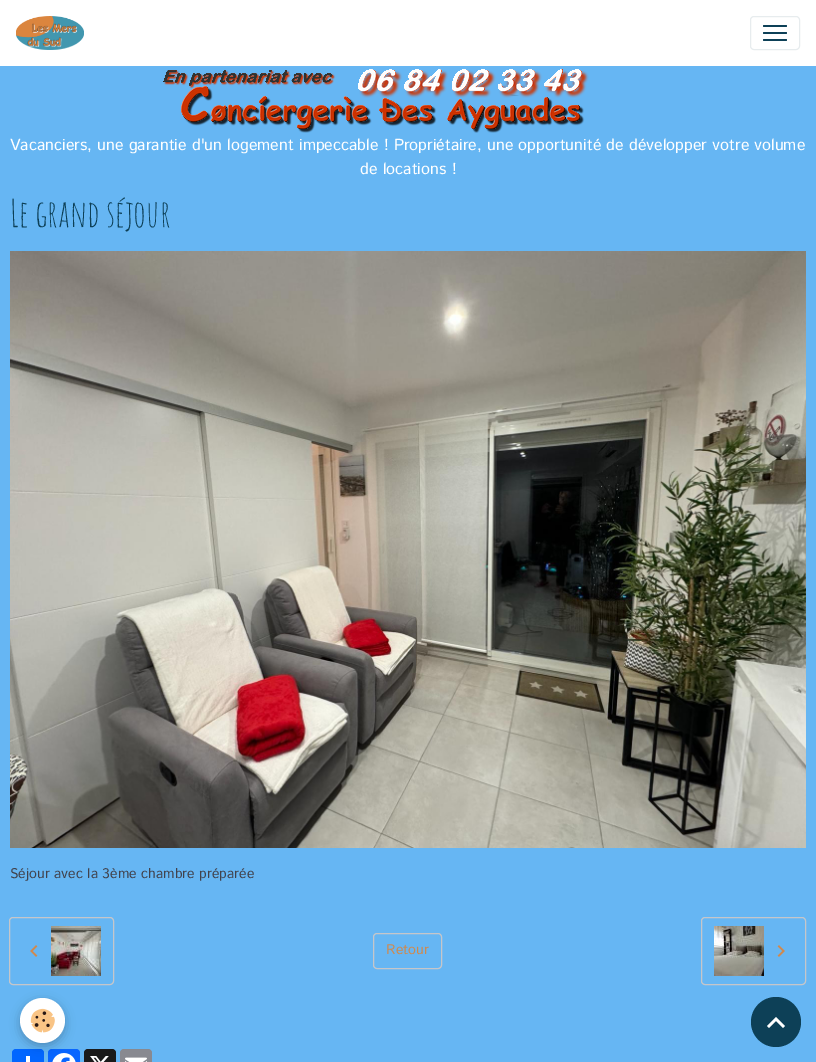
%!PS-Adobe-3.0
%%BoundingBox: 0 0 816 1062
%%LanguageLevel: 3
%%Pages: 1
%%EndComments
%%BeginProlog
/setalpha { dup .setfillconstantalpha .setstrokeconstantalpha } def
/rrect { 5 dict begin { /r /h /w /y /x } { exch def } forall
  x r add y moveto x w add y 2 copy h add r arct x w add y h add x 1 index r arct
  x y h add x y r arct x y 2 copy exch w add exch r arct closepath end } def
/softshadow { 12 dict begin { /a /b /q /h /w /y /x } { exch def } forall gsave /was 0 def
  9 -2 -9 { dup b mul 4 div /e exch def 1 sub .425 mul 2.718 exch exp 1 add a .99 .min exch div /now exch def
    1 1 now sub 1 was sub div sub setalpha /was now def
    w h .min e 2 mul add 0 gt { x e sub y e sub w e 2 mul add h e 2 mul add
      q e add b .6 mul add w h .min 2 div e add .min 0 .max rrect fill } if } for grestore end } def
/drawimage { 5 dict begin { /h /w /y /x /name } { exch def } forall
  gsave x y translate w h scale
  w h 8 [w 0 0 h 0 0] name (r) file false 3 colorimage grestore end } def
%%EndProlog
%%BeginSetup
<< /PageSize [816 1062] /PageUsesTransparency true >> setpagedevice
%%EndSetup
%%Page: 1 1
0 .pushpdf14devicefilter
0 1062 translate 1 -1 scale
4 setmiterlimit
0.4 0.714 0.953 setrgbcolor
0 0 816 1062 rectfill
1 setgray
0 0 816 66 rectfill
(images/1.raw) 16 16 68 34 drawimage
0.906 0.925 0.933 setrgbcolor
750.5 16.5 49 33 3.5 rrect stroke
0.051 0.251 0.341 setrgbcolor
763 25 24 2 1 rrect fill
763 32 24 2 1 rrect fill
763 39 24 2 1 rrect fill
(images/2.raw) 163 69 426 64 drawimage
(images/3.raw) 10 251 796 597 drawimage
0.776 0.776 0.788 setrgbcolor
9.5 917.5 104 67 3.5 rrect stroke
(images/4.raw) 30 945 8 12 drawimage
(images/5.raw) 51 926 50 50 drawimage
373.5 933.5 68 35 3.5 rrect stroke
701.5 917.5 104 67 3.5 rrect stroke
(images/6.raw) 714 926 50 50 drawimage
(images/7.raw) 777 945 8 12 drawimage
0.004 0.4 1 setrgbcolor
12 1049 32 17 4 rrect fill
1 setgray
26 1056 4 6 rectfill
0.031 0.4 1 setrgbcolor
48 1049 32 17 4 rrect fill
(images/8.raw) 52 1053 24 9 drawimage
0.102 setgray
84 1049 32 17 4 rrect fill
(images/9.raw) 90 1056 19 6 drawimage
0.533 0.537 0.565 setrgbcolor
120 1049 32 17 4 rrect fill
(images/10.raw) 125 1057 22 5 drawimage
0 setgray
20 1001 45 45 22.5 5 0.24 softshadow
1 setgray
newpath 42.5 1020.5 22.5 0 360 arc closepath fill
(images/11.raw) 30 1008 25 25 drawimage
0.051 0.251 0.341 setrgbcolor
newpath 776 1022 25 0 360 arc closepath fill
1 setgray
newpath 776 1017 moveto 785 1026 lineto 783 1028 lineto 776 1021 lineto 769 1028 lineto 767 1026 lineto closepath fill
/IstokWeb-Regular [16 0 0 -16 0 0] selectfont
10 150 moveto (Vacanciers, une garantie d'un logement impeccable ! Propriétaire, une opportunité de développer votre volume) show
360 174 moveto (de locations !) show
/AmaticSC-Regular [37 0 0 -37 0 0] selectfont
0.051 0.251 0.341 setrgbcolor
10 227 moveto (Le grand séjour) show
/IstokWeb-Regular [14 0 0 -14 0 0] selectfont
0.255 0.259 0.298 setrgbcolor
10 878 moveto (Séjour avec la 3ème chambre préparée) show
0.812 0.537 0.306 setrgbcolor
386 954 moveto (Retour) show
.poppdf14devicefilter showpage
%%EOF
